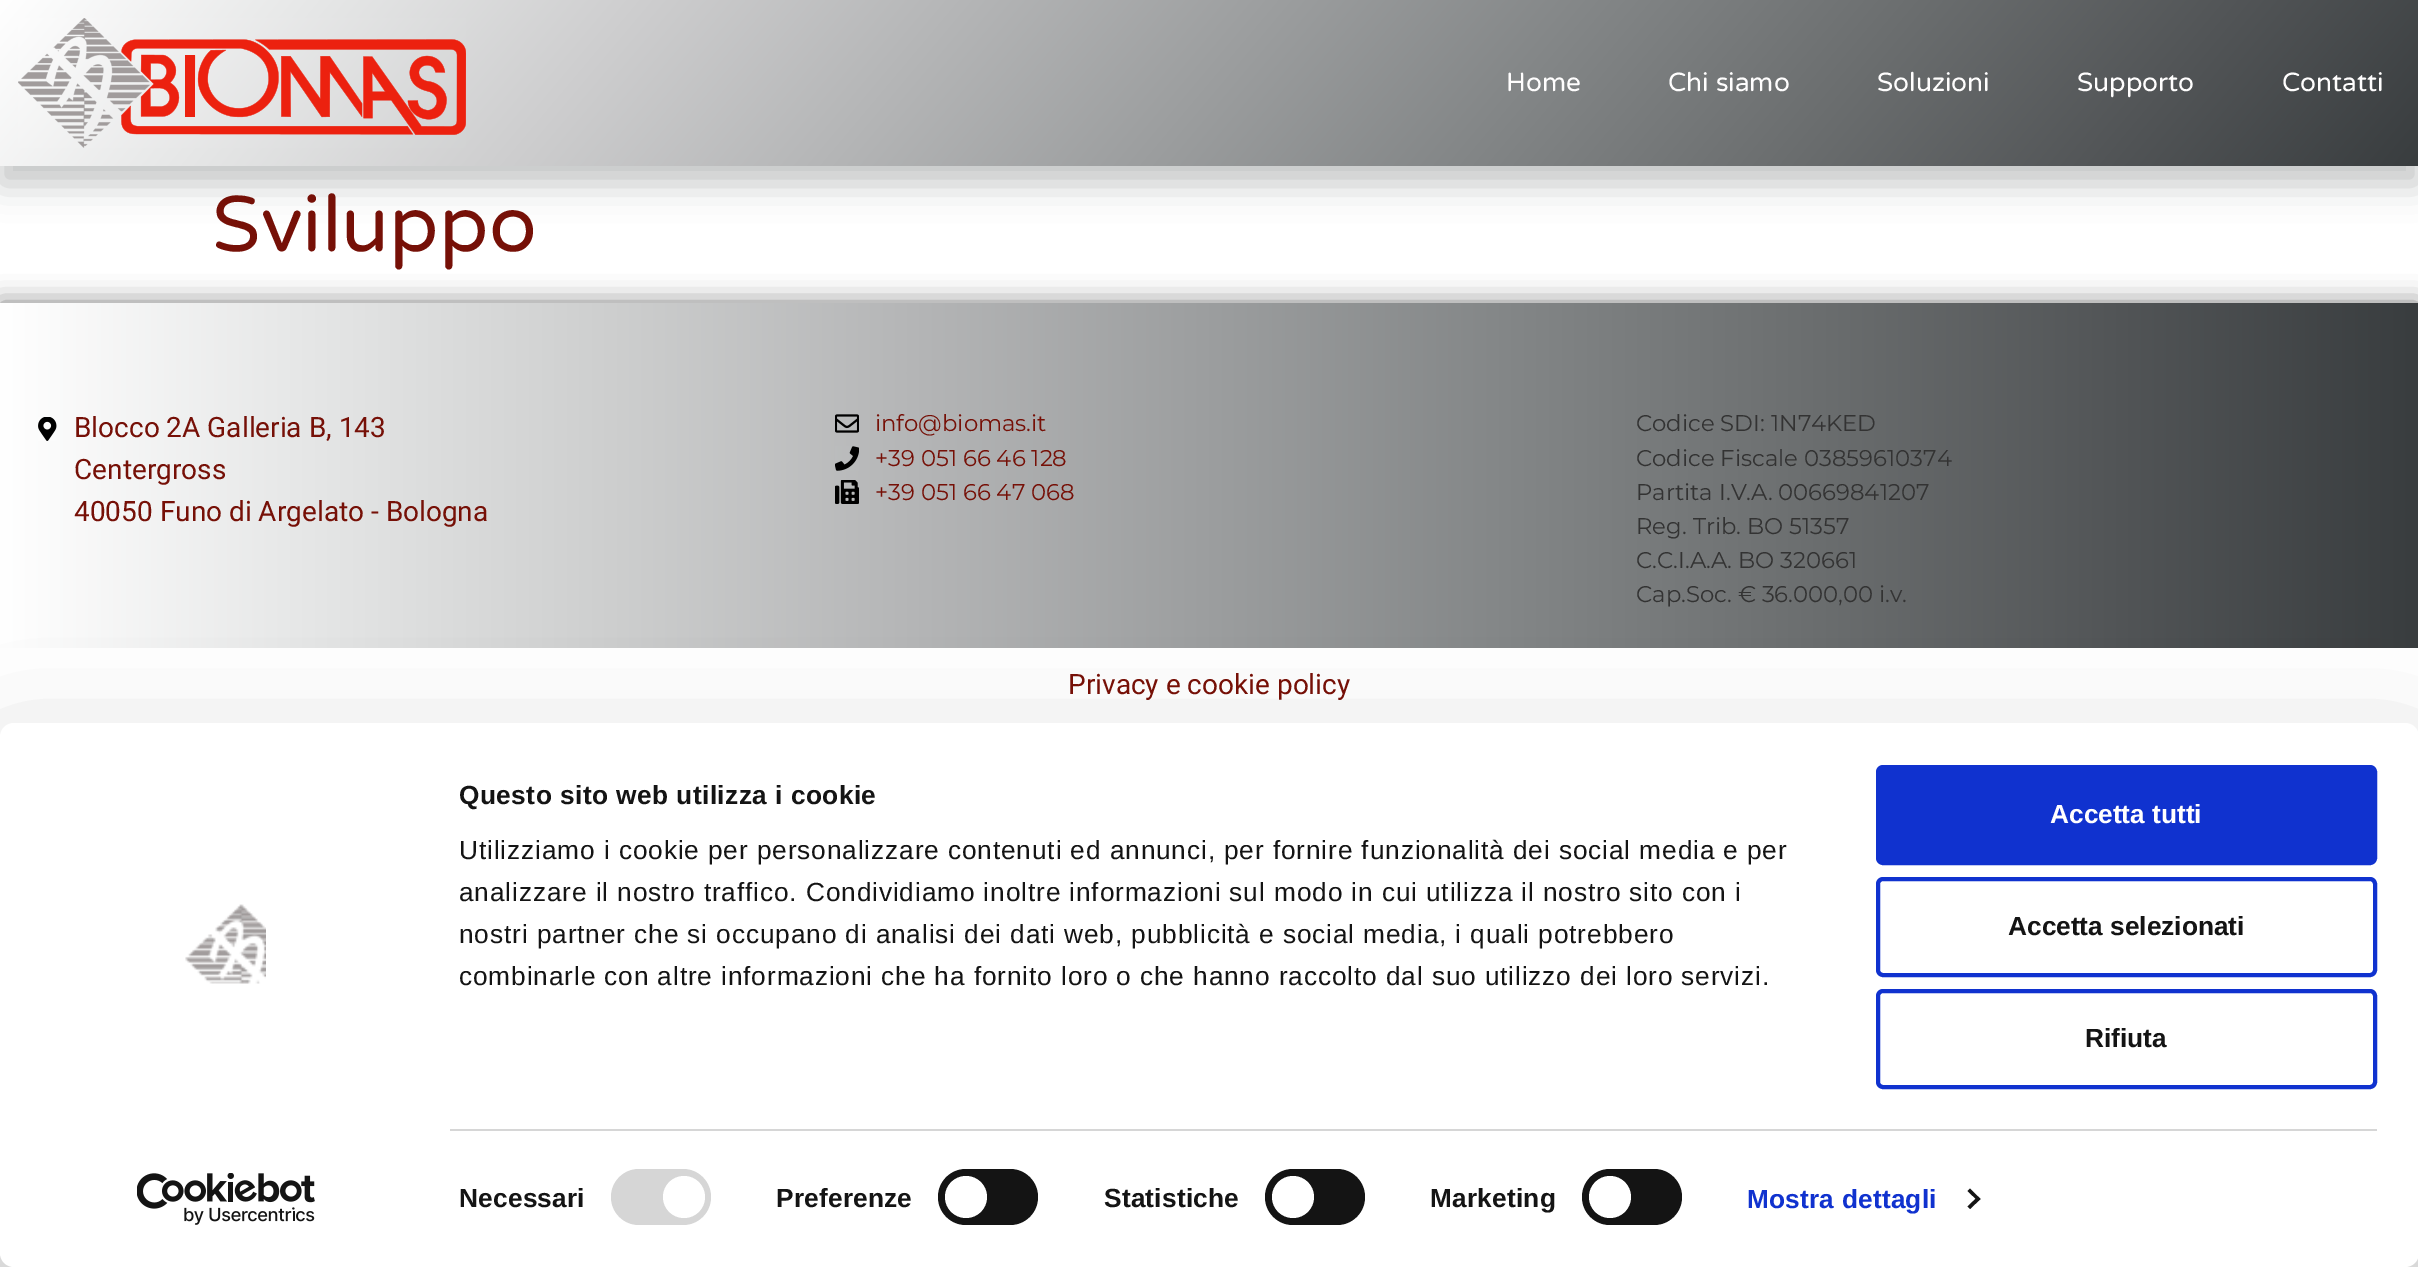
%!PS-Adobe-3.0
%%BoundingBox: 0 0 2418 1267
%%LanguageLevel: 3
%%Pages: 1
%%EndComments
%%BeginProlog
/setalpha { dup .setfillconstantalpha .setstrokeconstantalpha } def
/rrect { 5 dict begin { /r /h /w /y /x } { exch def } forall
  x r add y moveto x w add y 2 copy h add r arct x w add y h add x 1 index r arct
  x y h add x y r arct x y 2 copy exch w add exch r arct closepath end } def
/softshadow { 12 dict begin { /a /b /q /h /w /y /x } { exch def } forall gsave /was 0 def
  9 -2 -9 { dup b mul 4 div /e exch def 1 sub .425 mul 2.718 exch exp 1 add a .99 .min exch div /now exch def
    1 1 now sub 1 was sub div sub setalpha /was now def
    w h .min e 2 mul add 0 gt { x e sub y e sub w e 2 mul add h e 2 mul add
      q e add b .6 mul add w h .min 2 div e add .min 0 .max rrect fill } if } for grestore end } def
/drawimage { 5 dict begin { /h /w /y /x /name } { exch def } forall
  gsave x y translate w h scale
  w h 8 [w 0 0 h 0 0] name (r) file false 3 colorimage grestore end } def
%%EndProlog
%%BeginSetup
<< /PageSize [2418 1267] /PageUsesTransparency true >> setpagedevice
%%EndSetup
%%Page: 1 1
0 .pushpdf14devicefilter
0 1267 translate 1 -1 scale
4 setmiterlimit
1 setgray
0 0 2418 1267 rectfill
0.224 0.239 0.247 setrgbcolor
0 18 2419 166 0 17.5 0.3 softshadow
gsave newpath 0 0 moveto 2418 0 lineto 2418 166 lineto 0 166 lineto closepath clip newpath
<< /ShadingType 2 /ColorSpace /DeviceRGB /Coords [459 -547 1960 713] /Extend [true true] /Function << /FunctionType 2 /Domain [0 1] /C0 [1 1 1] /C1 [0.224 0.239 0.247] /N 1 >> >> shfill grestore
(images/1.raw) 18 18 448 130 drawimage
0 setgray
0 303 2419 70 0 13 0.5 softshadow
gsave newpath 0 303 moveto 2418 303 lineto 2418 373 lineto 0 373 lineto closepath clip newpath
<< /ShadingType 2 /ColorSpace /DeviceRGB /Coords [0 338 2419 338] /Extend [true true] /Function << /FunctionType 2 /Domain [0 1] /C0 [1 1 1] /C1 [0.224 0.239 0.247] /N 1 >> >> shfill grestore
gsave newpath 0 373 moveto 2418 373 lineto 2418 648 lineto 0 648 lineto closepath clip newpath
<< /ShadingType 2 /ColorSpace /DeviceRGB /Coords [0 510 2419 510] /Extend [true true] /Function << /FunctionType 2 /Domain [0 1] /C0 [1 1 1] /C1 [0.224 0.239 0.247] /N 1 >> >> shfill grestore
(images/2.raw) 38 417 19 24 drawimage
(images/3.raw) 835 414 24 19 drawimage
(images/4.raw) 835 446 24 25 drawimage
(images/5.raw) 835 480 24 24 drawimage
0 775 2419 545 14 61 0.3 softshadow
1 setgray
0 723 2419 544 14 rrect fill
(images/6.raw) 185 904 81 80 drawimage
(images/7.raw) 137 1173 178 52 drawimage
0.839 setgray
450 1129 1927 2 rectfill
611 1169 100 56 28 rrect fill
1 setgray
newpath 684 1197 21 0 360 arc closepath fill
0.078 setgray
938 1169 100 56 28 rrect fill
1 setgray
newpath 966 1197 21 0 360 arc closepath fill
0.078 setgray
1265 1169 100 56 28 rrect fill
1 setgray
newpath 1293 1197 21 0 360 arc closepath fill
0.078 setgray
1582 1169 100 56 28 rrect fill
1 setgray
newpath 1610 1197 21 0 360 arc closepath fill
0.078 setgray
newpath 1970 1188.5 moveto 1980.5 1199 lineto 1978 1201 lineto 1967.5 1191 lineto closepath fill
newpath 1978 1196.5 moveto 1980.5 1199 lineto 1970 1209 lineto 1967.5 1206.5 lineto closepath fill
0.063 0.196 0.812 setrgbcolor
1878 767 497 96 5 rrect gsave fill grestore
4 setlinewidth
stroke
1878 879 497 96 5 rrect stroke
1878 991 497 96 5 rrect stroke
/VarelaRound-Regular [26.25 0 0 -26.25 0 0] selectfont
1 0.996 0.996 setrgbcolor
1506 91 moveto (Home) show
1668 91 moveto (Chi siamo) show
1877 91 moveto (Soluzioni) show
2077 91 moveto (Supporto) show
2282 91 moveto (Contatti) show
/VarelaRound-Regular [78.75 0 0 -78.75 0 0] selectfont
0.463 0.063 0.027 setrgbcolor
212 251 moveto (Sviluppo) show
/Roboto-Regular [28 0 0 -28 0 0] selectfont
74 437 moveto (Blocco 2A Galleria B, 143) show
74 479 moveto (Centergross) show
74 521 moveto (40050 Funo di Argelato - Bologna) show
/Montserrat-Regular [22.75 0 0 -22.75 0 0] selectfont
875 431 moveto (info@biomas.it) show
875 466 moveto (+39 051 66 46 128) show
875 500 moveto (+39 051 66 47 068) show
0.2 setgray
1636 431 moveto (Codice SDI: 1N74KED) show
1636 466 moveto (Codice Fiscale 03859610374) show
1636 500 moveto (Partita I.V.A. 00669841207) show
1636 534 moveto (Reg. Trib. BO 51357) show
1636 568 moveto (C.C.I.A.A. BO 320661) show
1636 602 moveto (Cap.Soc. € 36.000,00 i.v.) show
/Roboto-Regular [28 0 0 -28 0 0] selectfont
0.463 0.063 0.027 setrgbcolor
1068 694 moveto (Privacy e cookie policy) show
/LiberationSans-Bold [26.25 0 0 -26.25 0 0] selectfont
0.078 setgray
459 804 moveto 0.45 0 (Questo sito web utilizza i cookie) ashow
/LiberationSans-Regular [26.25 0 0 -26.25 0 0] selectfont
459 859 moveto 0.88 0 (Utilizziamo i cookie per personalizzare contenuti ed annunci, per fornire funzionalità dei social media e per) ashow
459 901 moveto 0.88 0 (analizzare il nostro traffico. Condividiamo inoltre informazioni sul modo in cui utilizza il nostro sito con i) ashow
459 943 moveto 0.88 0 (nostri partner che si occupano di analisi dei dati web, pubblicità e social media, i quali potrebbero) ashow
459 985 moveto 0.88 0 (combinarle con altre informazioni che ha fornito loro o che hanno raccolto dal suo utilizzo dei loro servizi.) ashow
/LiberationSans-Bold [26.25 0 0 -26.25 0 0] selectfont
459 1207 moveto 0.2 0 (Necessari) ashow
776 1207 moveto 0.2 0 (Preferenze) ashow
1104 1207 moveto 0.2 0 (Statistiche) ashow
1430 1207 moveto 0.2 0 (Marketing) ashow
0.063 0.196 0.812 setrgbcolor
1747 1208 moveto 0.2 0 (Mostra dettagli) ashow
1 0.996 0.996 setrgbcolor
2050 823 moveto (Accetta tutti) show
0.078 setgray
2008 935 moveto (Accetta selezionati) show
2085 1047 moveto (Rifiuta) show
.poppdf14devicefilter showpage
%%EOF
